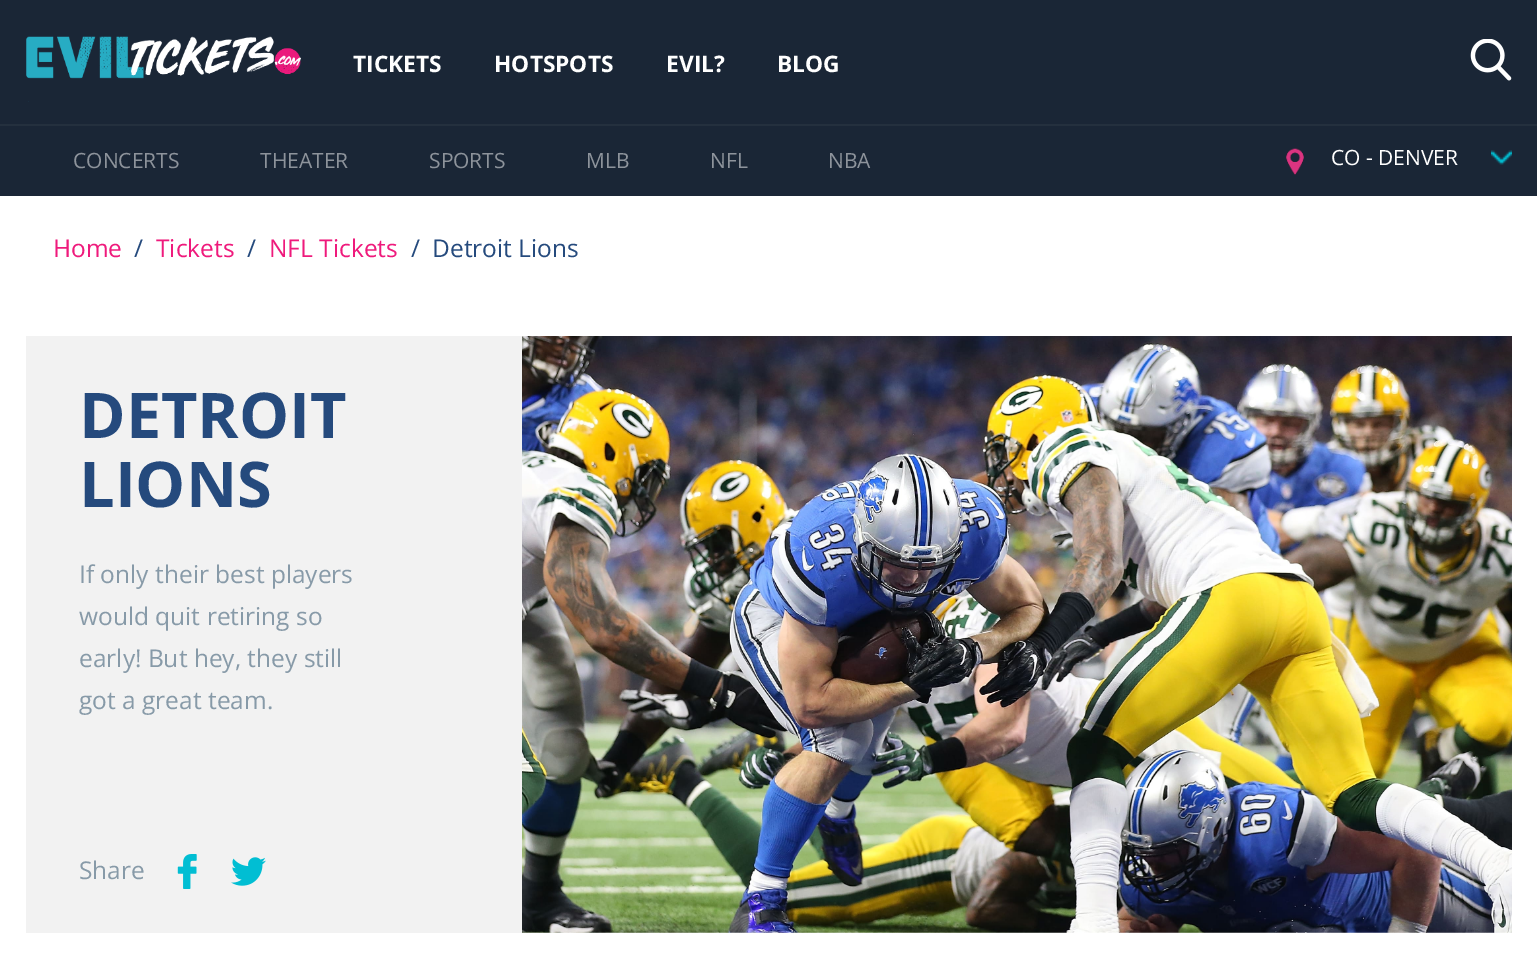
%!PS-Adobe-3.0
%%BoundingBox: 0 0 1537 965
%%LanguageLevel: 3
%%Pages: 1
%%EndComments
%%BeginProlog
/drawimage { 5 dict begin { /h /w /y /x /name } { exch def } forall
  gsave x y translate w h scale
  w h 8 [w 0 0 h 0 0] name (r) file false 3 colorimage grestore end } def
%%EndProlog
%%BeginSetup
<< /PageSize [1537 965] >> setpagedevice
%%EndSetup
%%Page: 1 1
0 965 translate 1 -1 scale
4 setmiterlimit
1 setgray
0 0 1537 965 rectfill
0.102 0.149 0.212 setrgbcolor
0 0 1537 196 rectfill
0.141 0.188 0.243 setrgbcolor
0 124 1537 2 rectfill
(images/1.raw) 26 36 275 66 drawimage
(images/2.raw) 1470 39 42 42 drawimage
(images/3.raw) 1286 148 18 27 drawimage
(images/4.raw) 1491 150 21 15 drawimage
0.949 setgray
26 336 496 597 rectfill
(images/5.raw) 177 854 20 35 drawimage
(images/6.raw) 231 857 35 29 drawimage
(images/7.raw) 522 336 990 597 drawimage
/OpenSans-Bold [22.75 0 0 -22.75 0 0] selectfont
1 setgray
353 72 moveto (TICKETS) show
/OpenSans-Regular [21 0 0 -21 0 0] selectfont
0.553 0.576 0.608 setrgbcolor
73 168 moveto (CONCERTS) show
260 168 moveto (THEATER) show
429 168 moveto (SPORTS) show
586 168 moveto (MLB) show
710 168 moveto (NFL) show
828 168 moveto (NBA) show
/OpenSans-Bold [22.75 0 0 -22.75 0 0] selectfont
1 setgray
494 72 moveto (HOTSPOTS) show
666 72 moveto (EVIL?) show
777 72 moveto (BLOG) show
/OpenSans-Regular [21 0 0 -21 0 0] selectfont
1331 165 moveto (CO - DENVER) show
/OpenSans-Regular [24.5 0 0 -24.5 0 0] selectfont
0.937 0.102 0.486 setrgbcolor
53 257 moveto (Home) show
0.145 0.29 0.49 setrgbcolor
134 257 moveto (/) show
0.937 0.102 0.486 setrgbcolor
156 257 moveto (Tickets) show
0.145 0.29 0.49 setrgbcolor
247 257 moveto (/) show
0.937 0.102 0.486 setrgbcolor
269 257 moveto (NFL Tickets) show
0.145 0.29 0.49 setrgbcolor
411 257 moveto (/) show
432 257 moveto (Detroit Lions) show
/OpenSans-Bold [63 0 0 -63 0 0] selectfont
79 438 moveto (DETROIT) show
79 507 moveto (LIONS) show
/OpenSans-Regular [24.5 0 0 -24.5 0 0] selectfont
0.529 0.604 0.659 setrgbcolor
79 583 moveto (If only their best players) show
79 625 moveto (would quit retiring so) show
79 667 moveto (early! But hey, they still) show
79 709 moveto (got a great team.) show
79 879 moveto (Share) show
showpage
%%EOF
